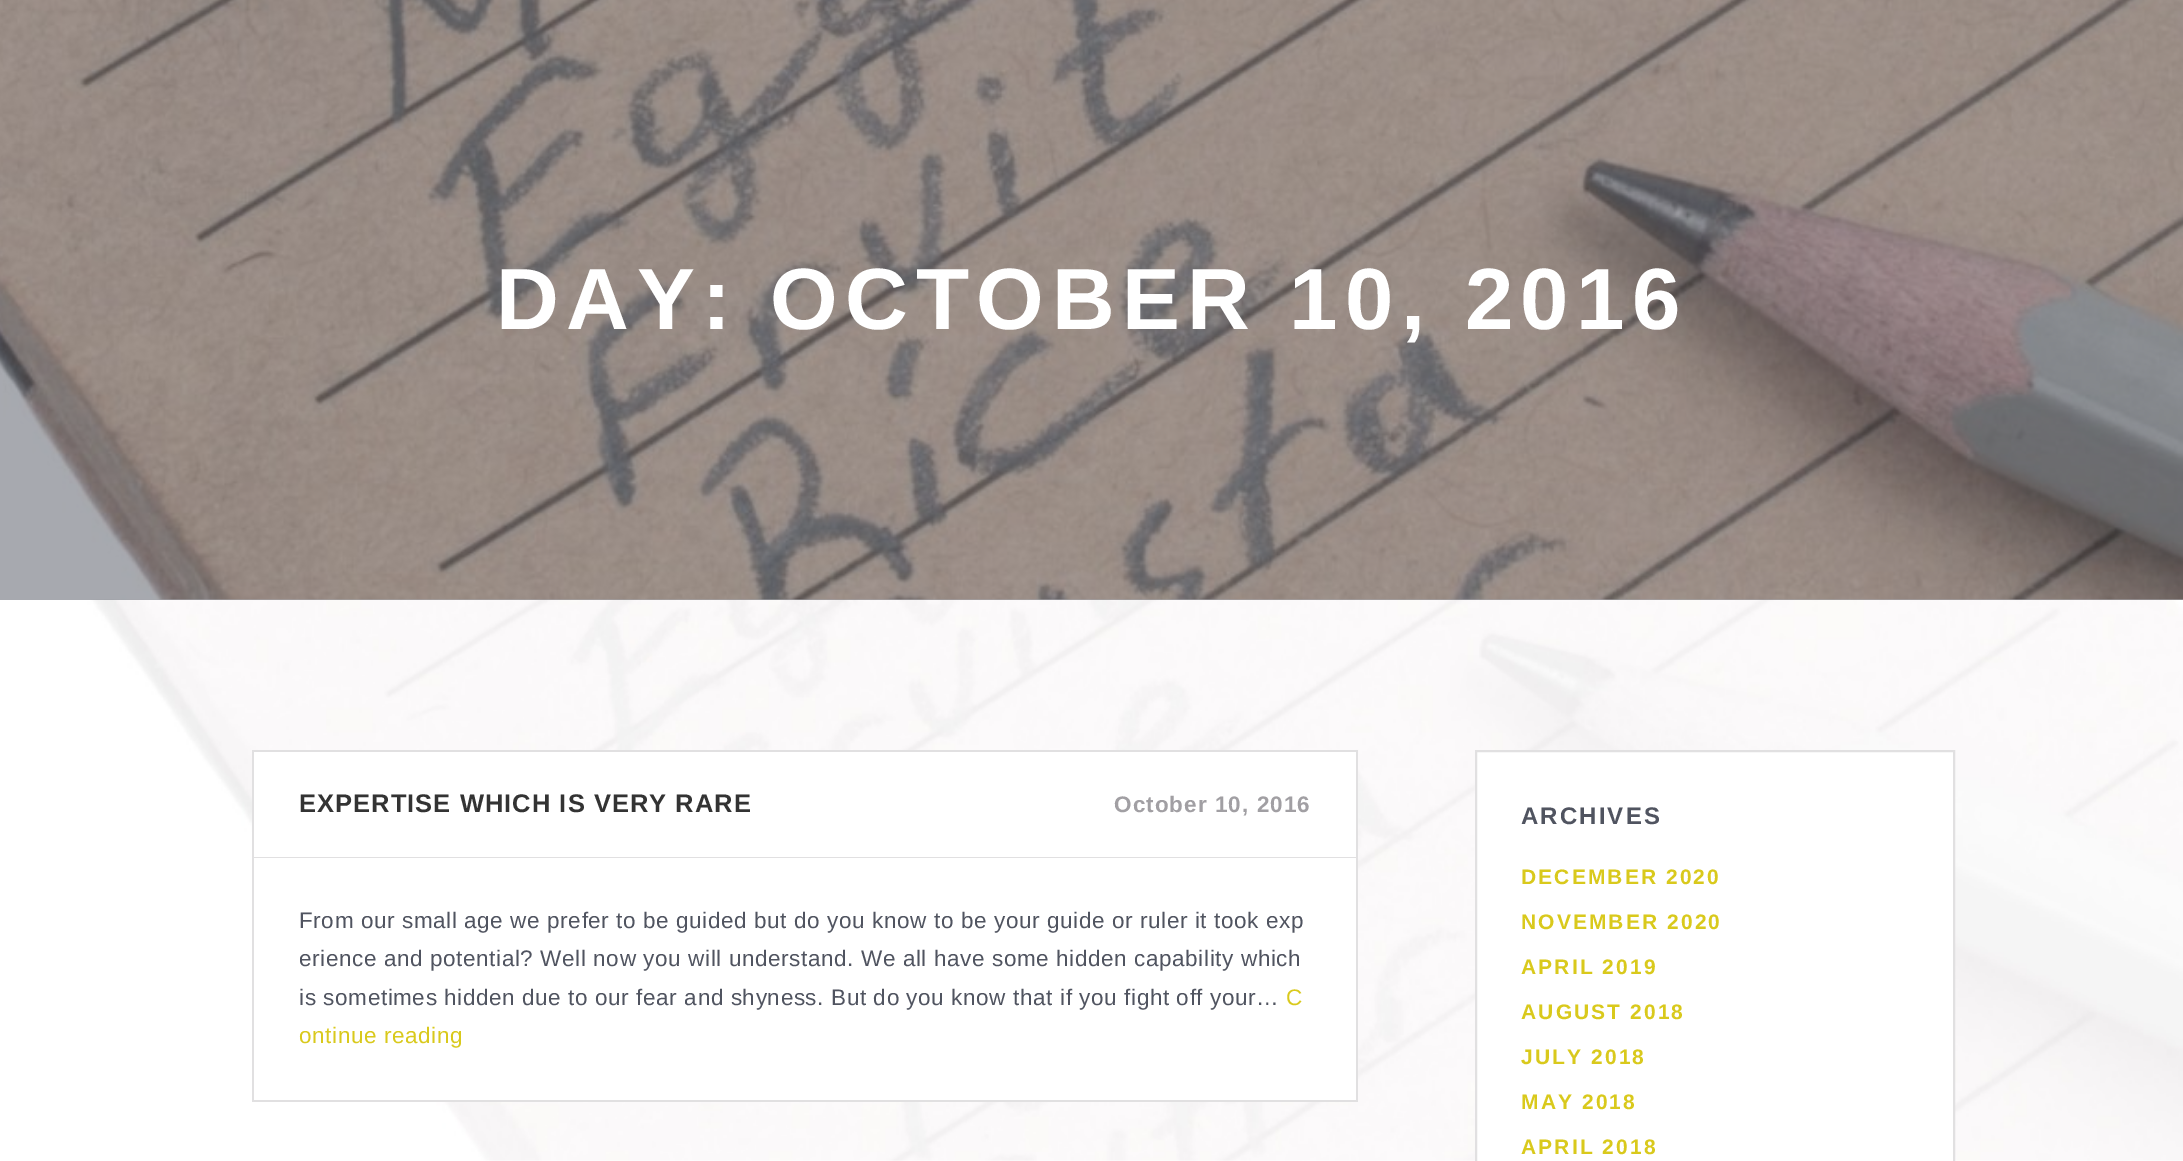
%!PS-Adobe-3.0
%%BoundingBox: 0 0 2183 1161
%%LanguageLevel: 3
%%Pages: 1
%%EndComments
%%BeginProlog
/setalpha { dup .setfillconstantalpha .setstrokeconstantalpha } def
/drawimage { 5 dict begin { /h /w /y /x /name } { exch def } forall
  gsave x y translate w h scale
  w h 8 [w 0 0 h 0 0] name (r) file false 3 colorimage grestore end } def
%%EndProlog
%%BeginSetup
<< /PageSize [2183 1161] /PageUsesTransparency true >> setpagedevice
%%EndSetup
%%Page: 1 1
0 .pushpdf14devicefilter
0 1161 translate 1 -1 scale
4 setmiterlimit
1 setgray
0 0 2183 1161 rectfill
(images/1.raw) 0 599 2183 562 drawimage
(images/2.raw) 0 0 2183 600 drawimage
0.5 setalpha
0.314 0.329 0.376 setrgbcolor
0 0 2183 600 rectfill
1 setalpha
1 setgray
254 752 1102 348 rectfill
0.882 0.878 0.882 setrgbcolor
1356 750 2 351 rectfill
252 1100 1106 2 rectfill
252 750 2 351 rectfill
254 750 1102 2 rectfill
254 857 1102 1 rectfill
1 setgray
newpath 1476 751 moveto 1954 751 lineto 1954 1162 lineto 1476 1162 lineto closepath gsave fill grestore
0.882 0.878 0.882 setrgbcolor
2 setlinewidth
stroke
/Arimo-Bold [87 0 0 -87 0 0] selectfont
1 setgray
496 329 moveto 7.5 0 (DAY: OCTOBER 10, 2016) ashow
/Arimo-Bold [25.5 0 0 -25.5 0 0] selectfont
0.2 setgray
299 812 moveto 1.05 0 (EXPERTISE WHICH IS VERY RARE) ashow
/Arimo-Bold [22.5 0 0 -22.5 0 0] selectfont
0.631 0.624 0.639 setrgbcolor
1114 812 moveto 1.05 0 (October 10, 2016) ashow
/Arimo-Regular [22.5 0 0 -22.5 0 0] selectfont
0.314 0.329 0.376 setrgbcolor
299 928 moveto 0.6 0 (From our small age we prefer to be guided but do you know to be your guide or ruler it took exp) ashow
299 966 moveto 0.6 0 (erience and potential? Well now you will understand. We all have some hidden capability which) ashow
299 1005 moveto 0.6 0 (is sometimes hidden due to our fear and shyness. But do you know that if you fight off your…) ashow
0.851 0.788 0.11 setrgbcolor
1286 1005 moveto 0.6 0 (C) ashow
299 1043 moveto 0.6 0 (ontinue reading) ashow
/Arimo-Bold [24 0 0 -24 0 0] selectfont
0.314 0.329 0.376 setrgbcolor
1521 824 moveto 2.1 0 (ARCHIVES) ashow
/Arimo-Bold [21 0 0 -21 0 0] selectfont
0.851 0.788 0.11 setrgbcolor
1521 884 moveto 2.1 0 (DECEMBER 2020) ashow
1521 929 moveto 2.1 0 (NOVEMBER 2020) ashow
1521 974 moveto 2.1 0 (APRIL 2019) ashow
1521 1019 moveto 2.1 0 (AUGUST 2018) ashow
1521 1064 moveto 2.1 0 (JULY 2018) ashow
1521 1109 moveto 2.1 0 (MAY 2018) ashow
1521 1154 moveto 2.1 0 (APRIL 2018) ashow
.poppdf14devicefilter showpage
%%EOF
